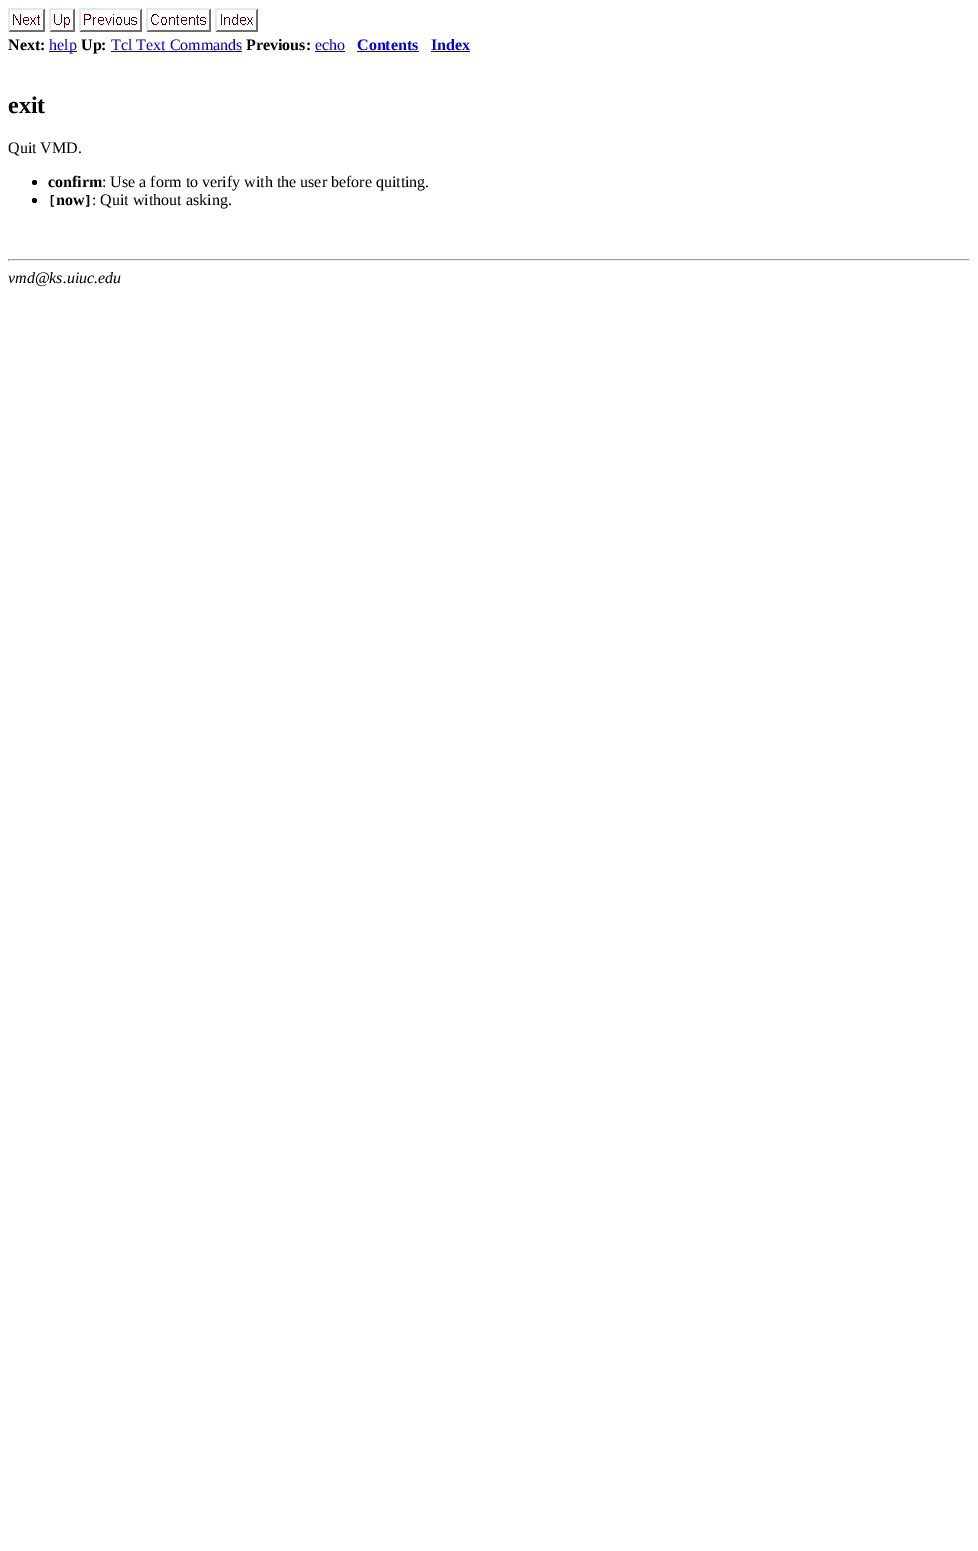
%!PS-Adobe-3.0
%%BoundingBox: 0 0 978 1551
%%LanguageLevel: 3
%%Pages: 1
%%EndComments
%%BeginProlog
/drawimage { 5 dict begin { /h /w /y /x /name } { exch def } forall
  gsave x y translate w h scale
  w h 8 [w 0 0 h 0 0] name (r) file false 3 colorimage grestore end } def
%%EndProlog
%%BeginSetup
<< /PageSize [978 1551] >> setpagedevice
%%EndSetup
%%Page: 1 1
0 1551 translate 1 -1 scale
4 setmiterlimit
1 setgray
0 0 978 1551 rectfill
(images/1.raw) 8 8 37 24 drawimage
(images/2.raw) 49 8 26 24 drawimage
(images/3.raw) 79 8 63 24 drawimage
(images/4.raw) 146 8 65 24 drawimage
(images/5.raw) 215 8 43 24 drawimage
0 0 0.933 setrgbcolor
49 51 28 1 rectfill
111 51 131 1 rectfill
315 51 30 1 rectfill
357 51 62 1 rectfill
431 51 39 1 rectfill
0 setgray
newpath 34.5 182.5 2.5 0 360 arc closepath fill
newpath 34.5 200.5 2.5 0 360 arc closepath fill
0.624 setgray
8 259 962 1 rectfill
0.933 setgray
969 259 1 2 rectfill
8 260 962 1 rectfill
0.624 setgray
8 259 1 2 rectfill
/LiberationSerif-Bold [16 0 0 -16 0 0] selectfont
0 setgray
8 50 moveto (Next:) show
/LiberationSerif-Regular [16 0 0 -16 0 0] selectfont
0 0 0.933 setrgbcolor
49 50 moveto (help) show
/LiberationSerif-Bold [16 0 0 -16 0 0] selectfont
0 setgray
81 50 moveto (Up:) show
/LiberationSerif-Regular [16 0 0 -16 0 0] selectfont
0 0 0.933 setrgbcolor
111 50 moveto (Tcl Text Commands) show
/LiberationSerif-Bold [16 0 0 -16 0 0] selectfont
0 setgray
246 50 moveto (Previous:) show
/LiberationSerif-Regular [16 0 0 -16 0 0] selectfont
0 0 0.933 setrgbcolor
315 50 moveto (echo) show
/LiberationSerif-Bold [16 0 0 -16 0 0] selectfont
357 50 moveto (Contents) show
431 50 moveto (Index) show
/LiberationSerif-Bold [24 0 0 -24 0 0] selectfont
0 setgray
8 113 moveto (exit) show
/LiberationSerif-Regular [16 0 0 -16 0 0] selectfont
8 153 moveto (Quit VMD.) show
/LiberationSerif-Bold [16 0 0 -16 0 0] selectfont
48 187 moveto (confirm) show
/LiberationSerif-Regular [16 0 0 -16 0 0] selectfont
102 187 moveto (: Use a form to verify with the user before quitting.) show
/DejaVuSansMono-Bold [13 0 0 -13 0 0] selectfont
48 205 moveto ([) show
/LiberationSerif-Bold [16 0 0 -16 0 0] selectfont
56 205 moveto (now) show
/DejaVuSansMono-Bold [13 0 0 -13 0 0] selectfont
84 205 moveto (]) show
/LiberationSerif-Regular [16 0 0 -16 0 0] selectfont
92 205 moveto (: Quit without asking.) show
/LiberationSerif-Italic [16 0 0 -16 0 0] selectfont
8 283 moveto (vmd@ks.uiuc.edu) show
showpage
%%EOF
